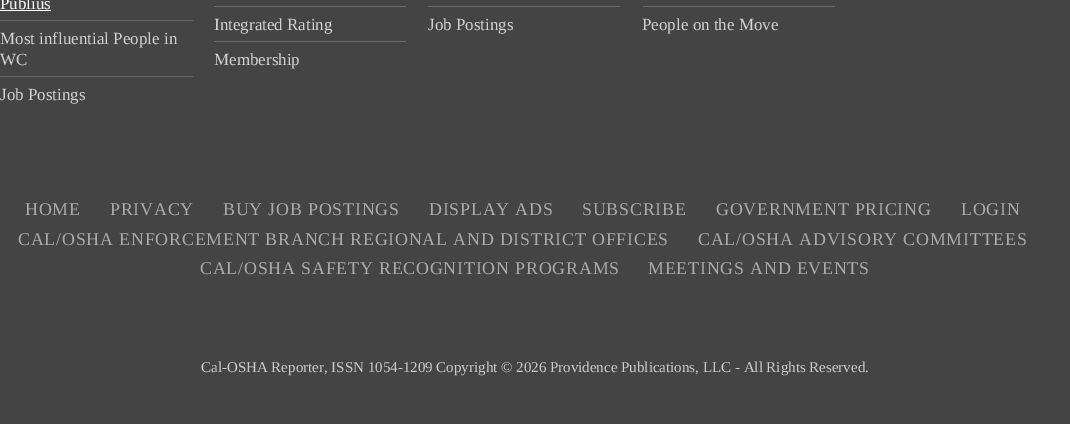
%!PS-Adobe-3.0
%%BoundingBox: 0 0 1070 424
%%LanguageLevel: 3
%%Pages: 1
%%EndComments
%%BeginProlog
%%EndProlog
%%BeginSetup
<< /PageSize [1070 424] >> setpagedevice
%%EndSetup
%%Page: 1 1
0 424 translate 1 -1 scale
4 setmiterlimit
0.267 setgray
0 0 1070 424 rectfill
1 setgray
0 10 51 1 rectfill
0.412 setgray
0 20 193 1 rectfill
0 76 193 1 rectfill
214 6 192 1 rectfill
214 41 192 1 rectfill
428 6 192 1 rectfill
643 6 192 1 rectfill
/LiberationSerif-Regular [17 0 0 -17 0 0] selectfont
1 setgray
0 9 moveto (Publius) show
0.824 setgray
0 44 moveto (Most influential People in) show
0 65 moveto (WC) show
0 100 moveto (Job Postings) show
214 30 moveto (Integrated Rating) show
214 65 moveto (Membership) show
428 30 moveto (Job Postings) show
642 30 moveto (People on the Move) show
/LiberationSerif-Regular [17.9 0 0 -17.9 0 0] selectfont
0.671 setgray
25 215 moveto 0.8 0 (HOME) ashow
110 215 moveto 0.8 0 (PRIVACY) ashow
223 215 moveto 0.8 0 (BUY JOB POSTINGS) ashow
429 215 moveto 0.8 0 (DISPLAY ADS) ashow
582 215 moveto 0.8 0 (SUBSCRIBE) ashow
716 215 moveto 0.8 0 (GOVERNMENT PRICING) ashow
961 215 moveto 0.8 0 (LOGIN) ashow
18 245 moveto 0.8 0 (CAL/OSHA ENFORCEMENT BRANCH REGIONAL AND DISTRICT OFFICES) ashow
698 245 moveto 0.8 0 (CAL/OSHA ADVISORY COMMITTEES) ashow
200 274 moveto 0.8 0 (CAL/OSHA SAFETY RECOGNITION PROGRAMS) ashow
648 274 moveto 0.8 0 (MEETINGS AND EVENTS) ashow
/LiberationSerif-Regular [15 0 0 -15 0 0] selectfont
0.8 setgray
201 372 moveto (Cal-OSHA Reporter, ISSN 1054-1209 Copyright © 2026 Providence Publications, LLC - All Rights Reserved.) show
showpage
%%EOF
